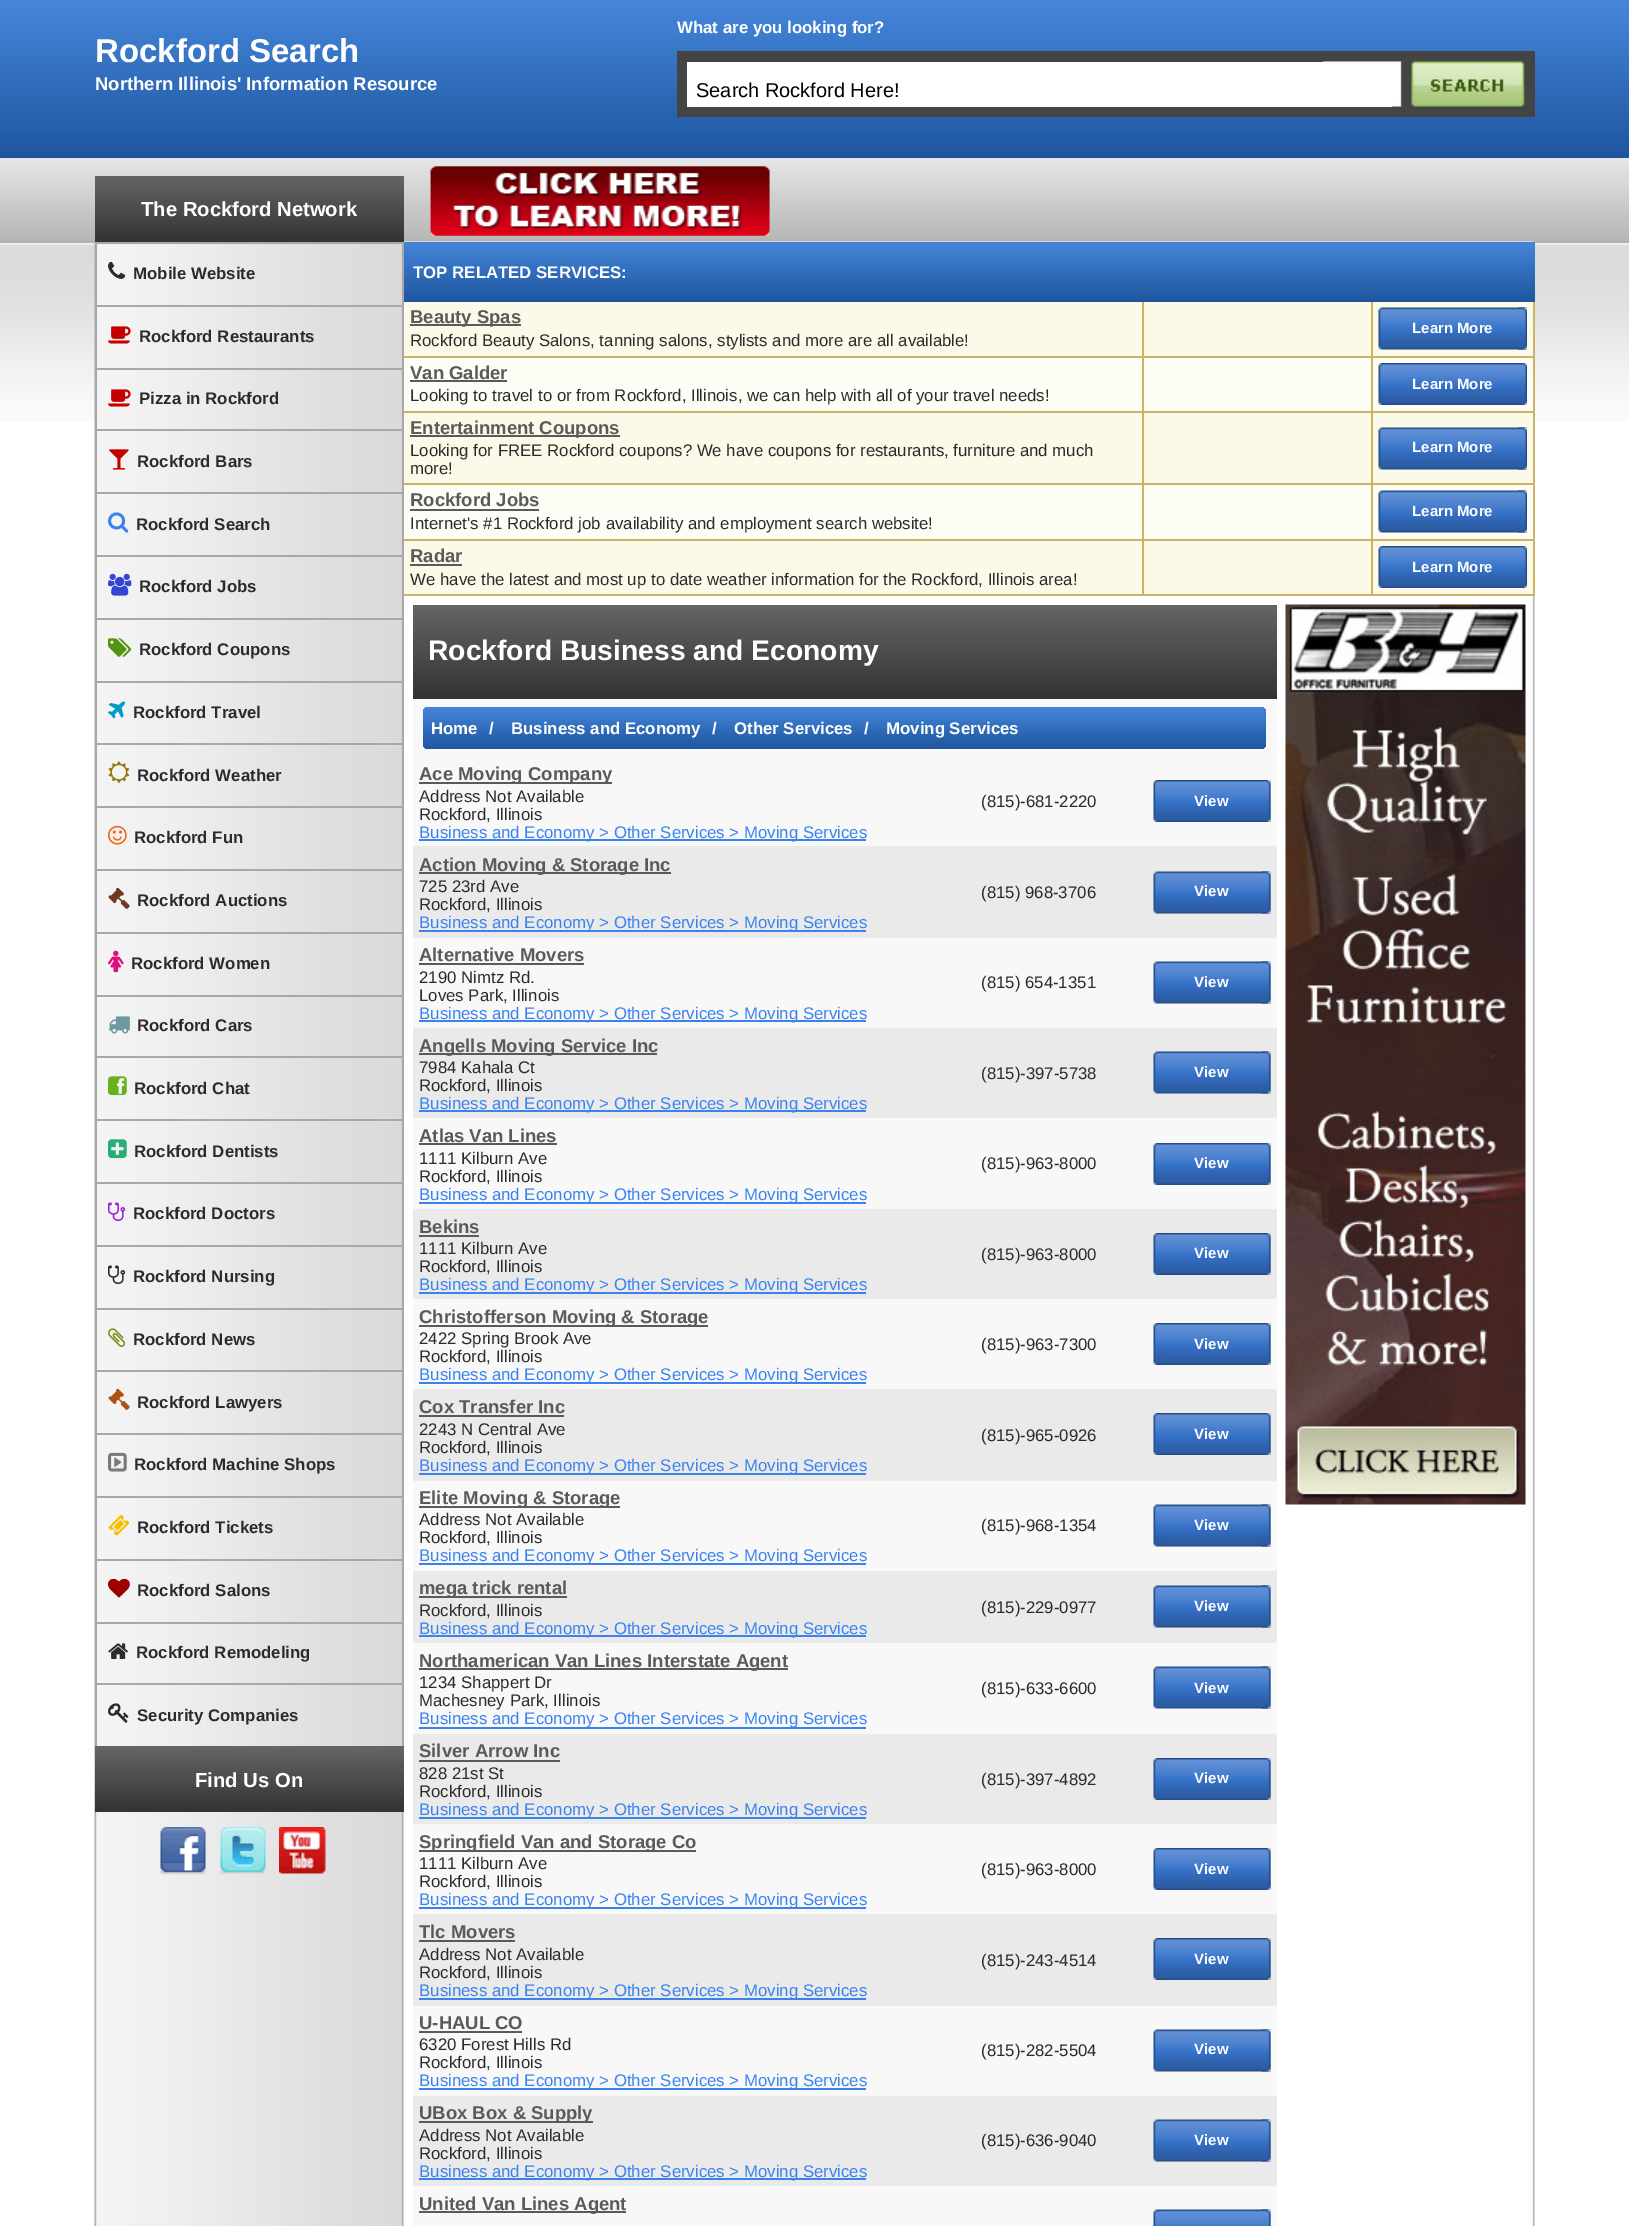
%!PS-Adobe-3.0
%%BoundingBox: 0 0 1629 2226
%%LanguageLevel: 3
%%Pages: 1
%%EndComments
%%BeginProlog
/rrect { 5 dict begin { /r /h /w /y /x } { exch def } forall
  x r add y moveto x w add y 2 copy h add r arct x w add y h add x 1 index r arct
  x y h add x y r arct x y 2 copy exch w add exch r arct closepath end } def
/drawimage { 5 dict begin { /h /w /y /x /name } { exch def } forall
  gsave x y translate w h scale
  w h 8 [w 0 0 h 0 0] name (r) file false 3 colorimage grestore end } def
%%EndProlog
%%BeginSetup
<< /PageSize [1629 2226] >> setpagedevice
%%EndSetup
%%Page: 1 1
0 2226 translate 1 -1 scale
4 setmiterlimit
1 setgray
0 0 1629 2226 rectfill
gsave newpath 0 0 moveto 1629 0 lineto 1629 158 lineto 0 158 lineto closepath clip newpath
<< /ShadingType 2 /ColorSpace /DeviceRGB /Coords [815 0 815 158] /Extend [true true] /Function << /FunctionType 2 /Domain [0 1] /C0 [0.275 0.529 0.859] /C1 [0.118 0.333 0.62] /N 1 >> >> shfill grestore
0.267 setgray
677 51 858 66 rectfill
(images/1.raw) 1323 61 202 46 drawimage
1 setgray
687 62 705 45 rectfill
gsave newpath 0 158 moveto 1629 158 lineto 1629 242 lineto 0 242 lineto closepath clip newpath
<< /ShadingType 2 /ColorSpace /DeviceRGB /Coords [815 157 815 242] /Extend [true true] /Function << /FunctionType 2 /Domain [0 1] /C0 [0.91 0.91 0.91] /C1 [0.71 0.71 0.71] /N 1 >> >> shfill grestore
(images/3.raw) 0 241 1629 181 drawimage
(images/4.raw) 94 241 1441 1985 drawimage
gsave newpath 95 176 moveto 404 176 lineto 404 242 lineto 95 242 lineto closepath clip newpath
<< /ShadingType 2 /ColorSpace /DeviceRGB /Coords [249 175 249 242] /Extend [true true] /Function << /FunctionType 2 /Domain [0 1] /C0 [0.4 0.4 0.4] /C1 [0.2 0.2 0.2] /N 1 >> >> shfill grestore
(images/2.raw) 430 166 340 70 drawimage
0.659 setgray
95 242 309 2 rectfill
402 242 2 63 rectfill
95 242 2 63 rectfill
(images/5.raw) 108 261 18 18 drawimage
95 305 309 2 rectfill
402 305 2 63 rectfill
95 305 2 63 rectfill
(images/6.raw) 108 326 23 18 drawimage
95 368 309 2 rectfill
402 368 2 61 rectfill
95 368 2 61 rectfill
(images/6.raw) 108 389 23 18 drawimage
95 429 309 2 rectfill
402 429 2 63 rectfill
95 429 2 63 rectfill
(images/7.raw) 109 449 20 21 drawimage
95 492 309 2 rectfill
402 492 2 63 rectfill
95 492 2 63 rectfill
(images/8.raw) 108 512 21 21 drawimage
95 555 309 2 rectfill
402 555 2 63 rectfill
95 555 2 63 rectfill
(images/9.raw) 108 573 24 23 drawimage
95 618 309 2 rectfill
402 618 2 63 rectfill
95 618 2 63 rectfill
(images/10.raw) 108 638 24 19 drawimage
95 681 309 2 rectfill
402 681 2 62 rectfill
95 681 2 62 rectfill
(images/11.raw) 108 701 18 18 drawimage
95 743 309 2 rectfill
402 743 2 63 rectfill
95 743 2 63 rectfill
(images/12.raw) 108 761 22 23 drawimage
95 806 309 2 rectfill
402 806 2 63 rectfill
95 806 2 63 rectfill
(images/13.raw) 108 825 19 20 drawimage
95 869 309 2 rectfill
402 869 2 63 rectfill
95 869 2 63 rectfill
(images/14.raw) 108 887 22 22 drawimage
95 932 309 2 rectfill
402 932 2 63 rectfill
95 932 2 63 rectfill
(images/15.raw) 108 950 16 23 drawimage
95 995 309 2 rectfill
402 995 2 61 rectfill
95 995 2 61 rectfill
(images/16.raw) 108 1016 22 18 drawimage
95 1056 309 2 rectfill
402 1056 2 63 rectfill
95 1056 2 63 rectfill
(images/17.raw) 108 1076 19 20 drawimage
95 1119 309 2 rectfill
402 1119 2 63 rectfill
95 1119 2 63 rectfill
(images/18.raw) 108 1139 19 20 drawimage
95 1182 309 2 rectfill
402 1182 2 63 rectfill
95 1182 2 63 rectfill
(images/19.raw) 108 1202 18 20 drawimage
95 1245 309 2 rectfill
402 1245 2 63 rectfill
95 1245 2 63 rectfill
(images/20.raw) 108 1265 18 20 drawimage
95 1308 309 2 rectfill
402 1308 2 62 rectfill
95 1308 2 62 rectfill
(images/21.raw) 108 1328 18 19 drawimage
95 1370 309 2 rectfill
402 1370 2 63 rectfill
95 1370 2 63 rectfill
(images/22.raw) 108 1388 22 22 drawimage
95 1433 309 2 rectfill
402 1433 2 63 rectfill
95 1433 2 63 rectfill
(images/23.raw) 108 1452 19 20 drawimage
95 1496 309 2 rectfill
402 1496 2 63 rectfill
95 1496 2 63 rectfill
(images/24.raw) 108 1515 22 21 drawimage
95 1559 309 2 rectfill
402 1559 2 63 rectfill
95 1559 2 63 rectfill
(images/25.raw) 108 1578 22 20 drawimage
95 1622 309 2 rectfill
402 1622 2 61 rectfill
95 1622 2 61 rectfill
(images/26.raw) 108 1643 20 16 drawimage
95 1683 309 2 rectfill
402 1683 2 63 rectfill
95 1683 2 63 rectfill
(images/27.raw) 108 1703 21 20 drawimage
gsave newpath 95 1746 moveto 404 1746 lineto 404 1812 lineto 95 1812 lineto closepath clip newpath
<< /ShadingType 2 /ColorSpace /DeviceRGB /Coords [249 1746 249 1812] /Extend [true true] /Function << /FunctionType 2 /Domain [0 1] /C0 [0.4 0.4 0.4] /C1 [0.2 0.2 0.2] /N 1 >> >> shfill grestore
(images/28.raw) 159 1827 48 48 drawimage
(images/29.raw) 219 1827 47 48 drawimage
(images/30.raw) 279 1827 47 47 drawimage
gsave newpath 404 242 moveto 1535 242 lineto 1535 302 lineto 404 302 lineto closepath clip newpath
<< /ShadingType 2 /ColorSpace /DeviceRGB /Coords [969 241 969 302] /Extend [true true] /Function << /FunctionType 2 /Domain [0 1] /C0 [0.275 0.529 0.859] /C1 [0.118 0.333 0.62] /N 1 >> >> shfill grestore
0.984 0.98 0.91 setrgbcolor
404 302 738 54 rectfill
0.8 0.702 0.4 setrgbcolor
1533 302 2 294 rectfill
1371 594 164 2 rectfill
1371 539 2 57 rectfill
1371 539 164 2 rectfill
1371 483 2 57 rectfill
1371 483 164 2 rectfill
1371 411 2 74 rectfill
1371 411 164 2 rectfill
1371 356 2 57 rectfill
1371 356 164 2 rectfill
1371 302 2 55 rectfill
1142 594 231 2 rectfill
1142 539 2 57 rectfill
1142 539 231 2 rectfill
1142 483 2 57 rectfill
1142 483 231 2 rectfill
1142 411 2 74 rectfill
1142 411 231 2 rectfill
1142 356 2 57 rectfill
1142 356 231 2 rectfill
1142 302 2 55 rectfill
404 356 739 2 rectfill
0.353 setgray
410 324 111 2 rectfill
0.984 0.98 0.91 setrgbcolor
1144 302 227 54 rectfill
1373 302 160 54 rectfill
(images/31.raw) 1378 307 149 43 drawimage
(images/32.raw) 1518 307 9 43 drawimage
0.992 0.992 0.965 setrgbcolor
404 358 738 53 rectfill
0.8 0.702 0.4 setrgbcolor
404 411 739 2 rectfill
0.353 setgray
410 380 97 2 rectfill
0.992 0.992 0.965 setrgbcolor
1144 358 227 53 rectfill
1373 358 160 53 rectfill
(images/33.raw) 1378 363 145 42 drawimage
(images/34.raw) 1523 363 4 42 drawimage
0.984 0.98 0.91 setrgbcolor
404 413 738 70 rectfill
0.8 0.702 0.4 setrgbcolor
404 483 739 2 rectfill
0.353 setgray
410 435 210 2 rectfill
0.984 0.98 0.91 setrgbcolor
1144 413 227 70 rectfill
1373 413 160 70 rectfill
(images/31.raw) 1378 427 149 43 drawimage
(images/32.raw) 1518 427 9 43 drawimage
0.992 0.992 0.965 setrgbcolor
404 485 738 54 rectfill
0.8 0.702 0.4 setrgbcolor
404 539 739 2 rectfill
0.353 setgray
410 509 129 2 rectfill
0.992 0.992 0.965 setrgbcolor
1144 485 227 54 rectfill
1373 485 160 54 rectfill
(images/35.raw) 1378 490 149 43 drawimage
(images/36.raw) 1518 490 9 43 drawimage
0.984 0.98 0.91 setrgbcolor
404 541 738 53 rectfill
0.8 0.702 0.4 setrgbcolor
404 594 739 2 rectfill
0.353 setgray
410 564 52 2 rectfill
0.984 0.98 0.91 setrgbcolor
1144 541 227 53 rectfill
1373 541 160 53 rectfill
(images/37.raw) 1378 546 145 42 drawimage
(images/34.raw) 1523 546 4 42 drawimage
gsave newpath 413 605 moveto 1277 605 lineto 1277 699 lineto 413 699 lineto closepath clip newpath
<< /ShadingType 2 /ColorSpace /DeviceRGB /Coords [845 604 845 699] /Extend [true true] /Function << /FunctionType 2 /Domain [0 1] /C0 [0.4 0.4 0.4] /C1 [0.2 0.2 0.2] /N 1 >> >> shfill grestore
0.973 setgray
413 699 864 57 rectfill
gsave 423 707 843 42 6 rrect clip newpath
<< /ShadingType 2 /ColorSpace /DeviceRGB /Coords [845 706 845 749] /Extend [true true] /Function << /FunctionType 2 /Domain [0 1] /C0 [0.275 0.529 0.859] /C1 [0.118 0.333 0.62] /N 1 >> >> shfill grestore
413 756 864 90 rectfill
0.353 setgray
419 782 193 2 rectfill
0.227 0.514 0.937 setrgbcolor
419 839 447 2 rectfill
(images/38.raw) 1153 780 118 42 drawimage
(images/39.raw) 1267 780 4 42 drawimage
0.918 setgray
413 846 864 92 rectfill
0.353 setgray
419 872 252 2 rectfill
0.227 0.514 0.937 setrgbcolor
419 930 447 2 rectfill
(images/40.raw) 1153 871 118 43 drawimage
(images/41.raw) 1261 871 10 43 drawimage
0.973 setgray
413 938 864 90 rectfill
0.353 setgray
419 963 165 2 rectfill
0.227 0.514 0.937 setrgbcolor
419 1020 447 2 rectfill
(images/42.raw) 1153 961 118 43 drawimage
(images/43.raw) 1261 961 10 43 drawimage
0.918 setgray
413 1028 864 90 rectfill
0.353 setgray
419 1053 238 2 rectfill
0.227 0.514 0.937 setrgbcolor
419 1110 447 2 rectfill
(images/40.raw) 1153 1051 118 43 drawimage
(images/41.raw) 1261 1051 10 43 drawimage
0.973 setgray
413 1118 864 91 rectfill
0.353 setgray
419 1143 138 2 rectfill
0.227 0.514 0.937 setrgbcolor
419 1202 447 2 rectfill
(images/38.raw) 1153 1143 118 42 drawimage
(images/39.raw) 1267 1143 4 42 drawimage
0.918 setgray
413 1209 864 90 rectfill
0.353 setgray
419 1235 60 2 rectfill
0.227 0.514 0.937 setrgbcolor
419 1292 447 2 rectfill
(images/44.raw) 1153 1233 118 42 drawimage
(images/45.raw) 1267 1233 4 42 drawimage
0.973 setgray
413 1299 864 90 rectfill
0.353 setgray
419 1325 289 2 rectfill
0.227 0.514 0.937 setrgbcolor
419 1382 447 2 rectfill
(images/38.raw) 1153 1323 118 42 drawimage
(images/39.raw) 1267 1323 4 42 drawimage
0.918 setgray
413 1389 864 92 rectfill
0.353 setgray
419 1415 145 2 rectfill
0.227 0.514 0.937 setrgbcolor
419 1473 447 2 rectfill
(images/44.raw) 1153 1413 118 42 drawimage
(images/45.raw) 1267 1413 4 42 drawimage
0.973 setgray
413 1481 864 90 rectfill
0.353 setgray
419 1506 201 2 rectfill
0.227 0.514 0.937 setrgbcolor
419 1563 447 2 rectfill
(images/42.raw) 1153 1504 118 43 drawimage
(images/43.raw) 1261 1504 10 43 drawimage
0.918 setgray
413 1571 864 72 rectfill
0.353 setgray
419 1596 148 2 rectfill
0.227 0.514 0.937 setrgbcolor
419 1635 447 2 rectfill
(images/40.raw) 1153 1585 118 43 drawimage
(images/41.raw) 1261 1585 10 43 drawimage
0.973 setgray
413 1643 864 91 rectfill
0.353 setgray
419 1668 369 2 rectfill
0.227 0.514 0.937 setrgbcolor
419 1727 447 2 rectfill
(images/42.raw) 1153 1666 118 43 drawimage
(images/43.raw) 1261 1666 10 43 drawimage
0.918 setgray
413 1734 864 90 rectfill
0.353 setgray
419 1760 141 2 rectfill
0.227 0.514 0.937 setrgbcolor
419 1817 447 2 rectfill
(images/44.raw) 1153 1758 118 42 drawimage
(images/45.raw) 1267 1758 4 42 drawimage
0.973 setgray
413 1824 864 90 rectfill
0.353 setgray
419 1850 277 2 rectfill
0.227 0.514 0.937 setrgbcolor
419 1907 447 2 rectfill
(images/38.raw) 1153 1848 118 42 drawimage
(images/39.raw) 1267 1848 4 42 drawimage
0.918 setgray
413 1914 864 92 rectfill
0.353 setgray
419 1940 96 2 rectfill
0.227 0.514 0.937 setrgbcolor
419 1998 447 2 rectfill
(images/44.raw) 1153 1938 118 42 drawimage
(images/45.raw) 1267 1938 4 42 drawimage
0.973 setgray
413 2006 864 90 rectfill
0.353 setgray
419 2031 103 2 rectfill
0.227 0.514 0.937 setrgbcolor
419 2088 447 2 rectfill
(images/42.raw) 1153 2029 118 43 drawimage
(images/43.raw) 1261 2029 10 43 drawimage
0.918 setgray
413 2096 864 90 rectfill
0.353 setgray
419 2121 174 2 rectfill
0.227 0.514 0.937 setrgbcolor
419 2178 447 2 rectfill
(images/40.raw) 1153 2119 118 43 drawimage
(images/41.raw) 1261 2119 10 43 drawimage
0.973 setgray
413 2186 864 40 rectfill
0.353 setgray
419 2211 207 2 rectfill
(images/46.raw) 1153 2209 118 17 drawimage
(images/47.raw) 1261 2209 10 17 drawimage
(images/48.raw) 1285 604 241 901 drawimage
/LiberationSans-Bold [33 0 0 -33 0 0] selectfont
1 setgray
95 62 moveto (Rockford Search) show
/LiberationSans-Bold [18.5 0 0 -18.5 0 0] selectfont
95 90 moveto (Northern Illinois' Information Resource) show
/LiberationSans-Bold [16.8 0 0 -16.8 0 0] selectfont
677 33 moveto (What are you looking for?) show
/LiberationSans-Regular [20 0 0 -20 0 0] selectfont
0 setgray
696 97 moveto (Search Rockford Here!) show
/LiberationSans-Bold [20.25 0 0 -20.25 0 0] selectfont
1 setgray
141 216 moveto (The Rockford Network) show
/LiberationSans-Bold [16.8 0 0 -16.8 0 0] selectfont
0.169 setgray
133 279 moveto (Mobile Website) show
139 342 moveto (Rockford Restaurants) show
139 404 moveto (Pizza in Rockford) show
137 467 moveto (Rockford Bars) show
136 530 moveto (Rockford Search) show
139 592 moveto (Rockford Jobs) show
139 655 moveto (Rockford Coupons) show
133 718 moveto (Rockford Travel) show
137 781 moveto (Rockford Weather) show
134 843 moveto (Rockford Fun) show
137 906 moveto (Rockford Auctions) show
131 969 moveto (Rockford Women) show
137 1031 moveto (Rockford Cars) show
134 1094 moveto (Rockford Chat) show
134 1157 moveto (Rockford Dentists) show
133 1219 moveto (Rockford Doctors) show
133 1282 moveto (Rockford Nursing) show
133 1345 moveto (Rockford News) show
137 1408 moveto (Rockford Lawyers) show
134 1470 moveto (Rockford Machine Shops) show
137 1533 moveto (Rockford Tickets) show
137 1596 moveto (Rockford Salons) show
136 1658 moveto (Rockford Remodeling) show
137 1721 moveto (Security Companies) show
/LiberationSans-Bold [20.25 0 0 -20.25 0 0] selectfont
1 setgray
195 1787 moveto (Find Us On) show
/LiberationSans-Bold [16.8 0 0 -16.8 0 0] selectfont
413 278 moveto (TOP RELATED SERVICES:) show
/LiberationSans-Bold [18.5 0 0 -18.5 0 0] selectfont
0.353 setgray
410 323 moveto (Beauty Spas) show
/LiberationSans-Regular [16.8 0 0 -16.8 0 0] selectfont
0.169 setgray
410 346 moveto (Rockford Beauty Salons, tanning salons, stylists and more are all available!) show
/LiberationSans-Bold [15 0 0 -15 0 0] selectfont
1 setgray
1412 333 moveto (Learn More) show
/LiberationSans-Bold [18.5 0 0 -18.5 0 0] selectfont
0.353 setgray
410 379 moveto (Van Galder) show
/LiberationSans-Regular [16.8 0 0 -16.8 0 0] selectfont
0.169 setgray
410 401 moveto (Looking to travel to or from Rockford, Illinois, we can help with all of your travel needs!) show
/LiberationSans-Bold [15 0 0 -15 0 0] selectfont
1 setgray
1412 389 moveto (Learn More) show
/LiberationSans-Bold [18.5 0 0 -18.5 0 0] selectfont
0.353 setgray
410 434 moveto (Entertainment Coupons) show
/LiberationSans-Regular [16.8 0 0 -16.8 0 0] selectfont
0.169 setgray
410 456 moveto (Looking for FREE Rockford coupons? We have coupons for restaurants, furniture and much) show
410 474 moveto (more!) show
/LiberationSans-Bold [15 0 0 -15 0 0] selectfont
1 setgray
1412 452 moveto (Learn More) show
/LiberationSans-Bold [18.5 0 0 -18.5 0 0] selectfont
0.353 setgray
410 506 moveto (Rockford Jobs) show
/LiberationSans-Regular [16.8 0 0 -16.8 0 0] selectfont
0.169 setgray
410 529 moveto (Internet's #1 Rockford job availability and employment search website!) show
/LiberationSans-Bold [15 0 0 -15 0 0] selectfont
1 setgray
1412 516 moveto (Learn More) show
/LiberationSans-Bold [18.5 0 0 -18.5 0 0] selectfont
0.353 setgray
410 562 moveto (Radar) show
/LiberationSans-Regular [16.8 0 0 -16.8 0 0] selectfont
0.169 setgray
410 585 moveto (We have the latest and most up to date weather information for the Rockford, Illinois area!) show
/LiberationSans-Bold [15 0 0 -15 0 0] selectfont
1 setgray
1412 572 moveto (Learn More) show
/LiberationSans-Bold [28.25 0 0 -28.25 0 0] selectfont
428 660 moveto (Rockford Business and Economy) show
/LiberationSans-Bold [16.8 0 0 -16.8 0 0] selectfont
431 734 moveto (Home) show
489 734 moveto (/) show
511 734 moveto (Business and Economy) show
712 734 moveto (/) show
734 734 moveto (Other Services) show
864 734 moveto (/) show
886 734 moveto (Moving Services) show
/LiberationSans-Bold [18.5 0 0 -18.5 0 0] selectfont
0.353 setgray
419 780 moveto (Ace Moving Company) show
/LiberationSans-Regular [16.8 0 0 -16.8 0 0] selectfont
0.169 setgray
419 802 moveto (Address Not Available) show
419 820 moveto (Rockford, Illinois) show
0.227 0.514 0.937 setrgbcolor
419 838 moveto (Business and Economy > Other Services > Moving Services) show
0.169 setgray
981 807 moveto (\(815\)-681-2220) show
/LiberationSans-Bold [15 0 0 -15 0 0] selectfont
1 setgray
1194 806 moveto (View) show
/LiberationSans-Bold [18.5 0 0 -18.5 0 0] selectfont
0.353 setgray
419 871 moveto (Action Moving & Storage Inc) show
/LiberationSans-Regular [16.8 0 0 -16.8 0 0] selectfont
0.169 setgray
419 892 moveto (725 23rd Ave) show
419 910 moveto (Rockford, Illinois) show
0.227 0.514 0.937 setrgbcolor
419 928 moveto (Business and Economy > Other Services > Moving Services) show
0.169 setgray
981 898 moveto (\(815\) 968-3706) show
/LiberationSans-Bold [15 0 0 -15 0 0] selectfont
1 setgray
1194 896 moveto (View) show
/LiberationSans-Bold [18.5 0 0 -18.5 0 0] selectfont
0.353 setgray
419 961 moveto (Alternative Movers) show
/LiberationSans-Regular [16.8 0 0 -16.8 0 0] selectfont
0.169 setgray
419 983 moveto (2190 Nimtz Rd.) show
419 1001 moveto (Loves Park, Illinois) show
0.227 0.514 0.937 setrgbcolor
419 1019 moveto (Business and Economy > Other Services > Moving Services) show
0.169 setgray
981 988 moveto (\(815\) 654-1351) show
/LiberationSans-Bold [15 0 0 -15 0 0] selectfont
1 setgray
1194 987 moveto (View) show
/LiberationSans-Bold [18.5 0 0 -18.5 0 0] selectfont
0.353 setgray
419 1052 moveto (Angells Moving Service Inc) show
/LiberationSans-Regular [16.8 0 0 -16.8 0 0] selectfont
0.169 setgray
419 1073 moveto (7984 Kahala Ct) show
419 1091 moveto (Rockford, Illinois) show
0.227 0.514 0.937 setrgbcolor
419 1109 moveto (Business and Economy > Other Services > Moving Services) show
0.169 setgray
981 1079 moveto (\(815\)-397-5738) show
/LiberationSans-Bold [15 0 0 -15 0 0] selectfont
1 setgray
1194 1077 moveto (View) show
/LiberationSans-Bold [18.5 0 0 -18.5 0 0] selectfont
0.353 setgray
419 1142 moveto (Atlas Van Lines) show
/LiberationSans-Regular [16.8 0 0 -16.8 0 0] selectfont
0.169 setgray
419 1164 moveto (1111 Kilburn Ave) show
419 1182 moveto (Rockford, Illinois) show
0.227 0.514 0.937 setrgbcolor
419 1200 moveto (Business and Economy > Other Services > Moving Services) show
0.169 setgray
981 1169 moveto (\(815\)-963-8000) show
/LiberationSans-Bold [15 0 0 -15 0 0] selectfont
1 setgray
1194 1168 moveto (View) show
/LiberationSans-Bold [18.5 0 0 -18.5 0 0] selectfont
0.353 setgray
419 1233 moveto (Bekins) show
/LiberationSans-Regular [16.8 0 0 -16.8 0 0] selectfont
0.169 setgray
419 1254 moveto (1111 Kilburn Ave) show
419 1272 moveto (Rockford, Illinois) show
0.227 0.514 0.937 setrgbcolor
419 1290 moveto (Business and Economy > Other Services > Moving Services) show
0.169 setgray
981 1260 moveto (\(815\)-963-8000) show
/LiberationSans-Bold [15 0 0 -15 0 0] selectfont
1 setgray
1194 1258 moveto (View) show
/LiberationSans-Bold [18.5 0 0 -18.5 0 0] selectfont
0.353 setgray
419 1323 moveto (Christofferson Moving & Storage) show
/LiberationSans-Regular [16.8 0 0 -16.8 0 0] selectfont
0.169 setgray
419 1344 moveto (2422 Spring Brook Ave) show
419 1362 moveto (Rockford, Illinois) show
0.227 0.514 0.937 setrgbcolor
419 1380 moveto (Business and Economy > Other Services > Moving Services) show
0.169 setgray
981 1350 moveto (\(815\)-963-7300) show
/LiberationSans-Bold [15 0 0 -15 0 0] selectfont
1 setgray
1194 1349 moveto (View) show
/LiberationSans-Bold [18.5 0 0 -18.5 0 0] selectfont
0.353 setgray
419 1413 moveto (Cox Transfer Inc) show
/LiberationSans-Regular [16.8 0 0 -16.8 0 0] selectfont
0.169 setgray
419 1435 moveto (2243 N Central Ave) show
419 1453 moveto (Rockford, Illinois) show
0.227 0.514 0.937 setrgbcolor
419 1471 moveto (Business and Economy > Other Services > Moving Services) show
0.169 setgray
981 1441 moveto (\(815\)-965-0926) show
/LiberationSans-Bold [15 0 0 -15 0 0] selectfont
1 setgray
1194 1439 moveto (View) show
/LiberationSans-Bold [18.5 0 0 -18.5 0 0] selectfont
0.353 setgray
419 1504 moveto (Elite Moving & Storage) show
/LiberationSans-Regular [16.8 0 0 -16.8 0 0] selectfont
0.169 setgray
419 1525 moveto (Address Not Available) show
419 1543 moveto (Rockford, Illinois) show
0.227 0.514 0.937 setrgbcolor
419 1561 moveto (Business and Economy > Other Services > Moving Services) show
0.169 setgray
981 1531 moveto (\(815\)-968-1354) show
/LiberationSans-Bold [15 0 0 -15 0 0] selectfont
1 setgray
1194 1530 moveto (View) show
/LiberationSans-Bold [18.5 0 0 -18.5 0 0] selectfont
0.353 setgray
419 1594 moveto (mega trick rental) show
/LiberationSans-Regular [16.8 0 0 -16.8 0 0] selectfont
0.169 setgray
419 1616 moveto (Rockford, Illinois) show
0.227 0.514 0.937 setrgbcolor
419 1634 moveto (Business and Economy > Other Services > Moving Services) show
0.169 setgray
981 1613 moveto (\(815\)-229-0977) show
/LiberationSans-Bold [15 0 0 -15 0 0] selectfont
1 setgray
1194 1611 moveto (View) show
/LiberationSans-Bold [18.5 0 0 -18.5 0 0] selectfont
0.353 setgray
419 1667 moveto (Northamerican Van Lines Interstate Agent) show
/LiberationSans-Regular [16.8 0 0 -16.8 0 0] selectfont
0.169 setgray
419 1688 moveto (1234 Shappert Dr) show
419 1706 moveto (Machesney Park, Illinois) show
0.227 0.514 0.937 setrgbcolor
419 1724 moveto (Business and Economy > Other Services > Moving Services) show
0.169 setgray
981 1694 moveto (\(815\)-633-6600) show
/LiberationSans-Bold [15 0 0 -15 0 0] selectfont
1 setgray
1194 1693 moveto (View) show
/LiberationSans-Bold [18.5 0 0 -18.5 0 0] selectfont
0.353 setgray
419 1757 moveto (Silver Arrow Inc) show
/LiberationSans-Regular [16.8 0 0 -16.8 0 0] selectfont
0.169 setgray
419 1779 moveto (828 21st St) show
419 1797 moveto (Rockford, Illinois) show
0.227 0.514 0.937 setrgbcolor
419 1815 moveto (Business and Economy > Other Services > Moving Services) show
0.169 setgray
981 1785 moveto (\(815\)-397-4892) show
/LiberationSans-Bold [15 0 0 -15 0 0] selectfont
1 setgray
1194 1783 moveto (View) show
/LiberationSans-Bold [18.5 0 0 -18.5 0 0] selectfont
0.353 setgray
419 1848 moveto (Springfield Van and Storage Co) show
/LiberationSans-Regular [16.8 0 0 -16.8 0 0] selectfont
0.169 setgray
419 1869 moveto (1111 Kilburn Ave) show
419 1887 moveto (Rockford, Illinois) show
0.227 0.514 0.937 setrgbcolor
419 1905 moveto (Business and Economy > Other Services > Moving Services) show
0.169 setgray
981 1875 moveto (\(815\)-963-8000) show
/LiberationSans-Bold [15 0 0 -15 0 0] selectfont
1 setgray
1194 1874 moveto (View) show
/LiberationSans-Bold [18.5 0 0 -18.5 0 0] selectfont
0.353 setgray
419 1938 moveto (Tlc Movers) show
/LiberationSans-Regular [16.8 0 0 -16.8 0 0] selectfont
0.169 setgray
419 1960 moveto (Address Not Available) show
419 1978 moveto (Rockford, Illinois) show
0.227 0.514 0.937 setrgbcolor
419 1996 moveto (Business and Economy > Other Services > Moving Services) show
0.169 setgray
981 1966 moveto (\(815\)-243-4514) show
/LiberationSans-Bold [15 0 0 -15 0 0] selectfont
1 setgray
1194 1964 moveto (View) show
/LiberationSans-Bold [18.5 0 0 -18.5 0 0] selectfont
0.353 setgray
419 2029 moveto (U-HAUL CO) show
/LiberationSans-Regular [16.8 0 0 -16.8 0 0] selectfont
0.169 setgray
419 2050 moveto (6320 Forest Hills Rd) show
419 2068 moveto (Rockford, Illinois) show
0.227 0.514 0.937 setrgbcolor
419 2086 moveto (Business and Economy > Other Services > Moving Services) show
0.169 setgray
981 2056 moveto (\(815\)-282-5504) show
/LiberationSans-Bold [15 0 0 -15 0 0] selectfont
1 setgray
1194 2054 moveto (View) show
/LiberationSans-Bold [18.5 0 0 -18.5 0 0] selectfont
0.353 setgray
419 2119 moveto (UBox Box & Supply) show
/LiberationSans-Regular [16.8 0 0 -16.8 0 0] selectfont
0.169 setgray
419 2141 moveto (Address Not Available) show
419 2159 moveto (Rockford, Illinois) show
0.227 0.514 0.937 setrgbcolor
419 2177 moveto (Business and Economy > Other Services > Moving Services) show
0.169 setgray
981 2146 moveto (\(815\)-636-9040) show
/LiberationSans-Bold [15 0 0 -15 0 0] selectfont
1 setgray
1194 2145 moveto (View) show
/LiberationSans-Bold [18.5 0 0 -18.5 0 0] selectfont
0.353 setgray
419 2210 moveto (United Van Lines Agent) show
showpage
%%EOF
